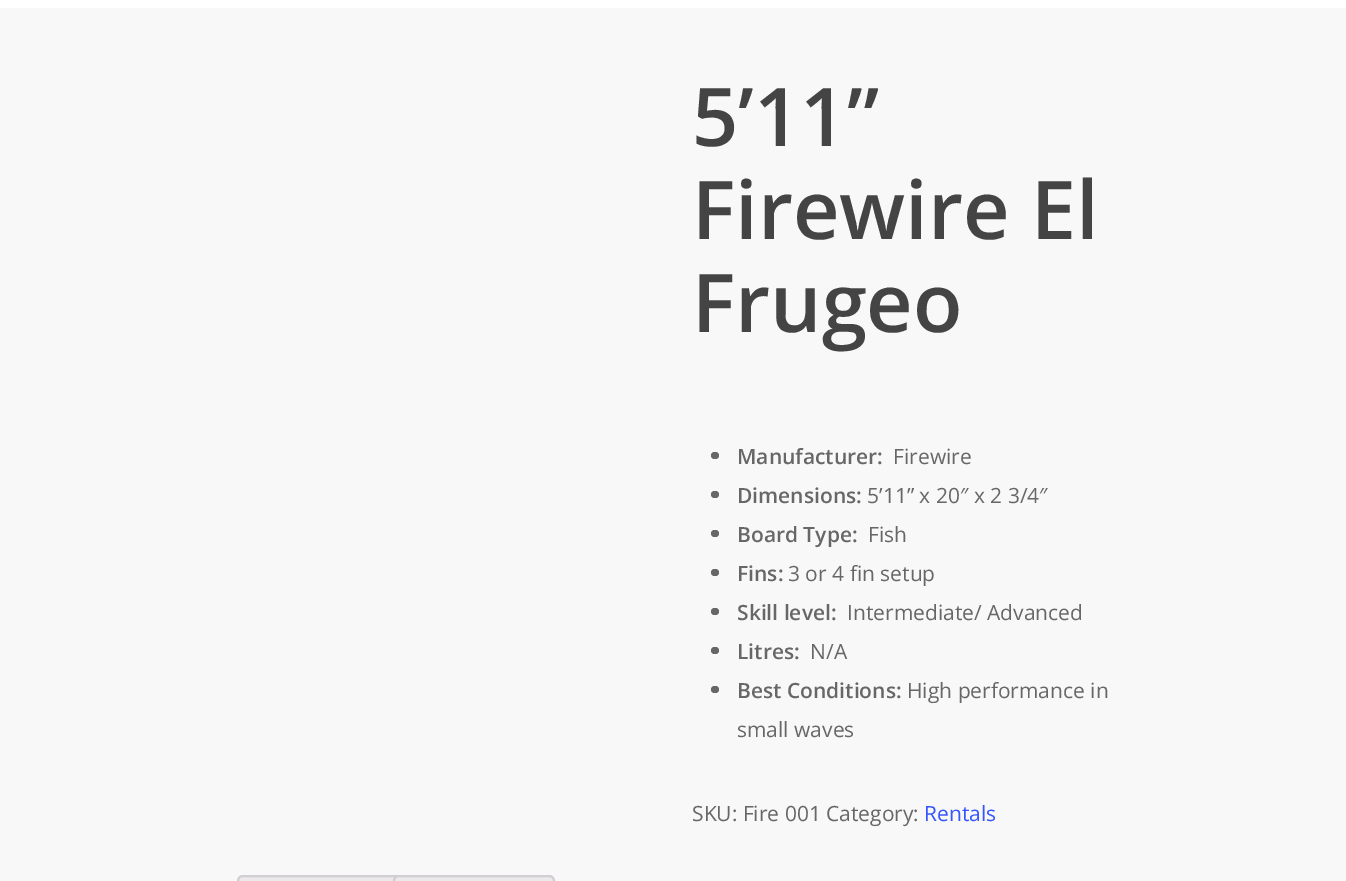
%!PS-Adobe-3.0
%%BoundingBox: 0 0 1346 881
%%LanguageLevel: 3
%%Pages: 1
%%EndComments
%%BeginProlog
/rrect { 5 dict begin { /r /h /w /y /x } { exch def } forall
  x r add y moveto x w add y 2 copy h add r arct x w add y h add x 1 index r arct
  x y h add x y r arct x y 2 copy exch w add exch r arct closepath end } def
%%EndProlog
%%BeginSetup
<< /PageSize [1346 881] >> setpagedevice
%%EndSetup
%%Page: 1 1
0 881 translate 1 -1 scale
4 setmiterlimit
1 setgray
0 0 1346 881 rectfill
0.973 setgray
0 8 1346 873 rectfill
0.404 setgray
711 452 8 7 3.5 rrect fill
711 491 8 7 3.5 rrect fill
711 530 8 7 3.5 rrect fill
711 569 8 7 3.5 rrect fill
711 608 8 7 3.5 rrect fill
711 647 8 7 3.5 rrect fill
711 686 8 7 3.5 rrect fill
0.922 0.914 0.922 setrgbcolor
newpath 243 876 moveto 398 876 lineto 401 876 403 878 403 881 curveto 403 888 lineto 238 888 lineto 238 881 lineto 238 878 240 876 243 876 curveto closepath gsave fill grestore
0.827 0.808 0.824 setrgbcolor
2 setlinewidth
stroke
0.922 0.914 0.922 setrgbcolor
newpath 399 876 moveto 549 876 lineto 552 876 554 878 554 881 curveto 554 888 lineto 394 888 lineto 394 881 lineto 394 878 396 876 399 876 curveto closepath gsave fill grestore
0.827 0.808 0.824 setrgbcolor
stroke
/OpenSans-SemiBold [81 0 0 -81 0 0] selectfont
0.267 setgray
692 146 moveto (5’11”) show
692 239 moveto (Firewire El) show
692 332 moveto (Frugeo) show
/OpenSans-SemiBold [21 0 0 -21 0 0] selectfont
0.404 setgray
737 464 moveto (Manufacturer:) show
/OpenSans-Regular [21 0 0 -21 0 0] selectfont
893 464 moveto (Firewire) show
/OpenSans-SemiBold [21 0 0 -21 0 0] selectfont
737 503 moveto (Dimensions:) show
/OpenSans-Regular [21 0 0 -21 0 0] selectfont
867 503 moveto (5’11” x 20″ x 2 3/4″) show
/OpenSans-SemiBold [21 0 0 -21 0 0] selectfont
737 542 moveto (Board Type:) show
/OpenSans-Regular [21 0 0 -21 0 0] selectfont
868 542 moveto (Fish) show
/OpenSans-SemiBold [21 0 0 -21 0 0] selectfont
737 581 moveto (Fins:) show
/OpenSans-Regular [21 0 0 -21 0 0] selectfont
788 581 moveto (3 or 4 fin setup) show
/OpenSans-SemiBold [21 0 0 -21 0 0] selectfont
737 620 moveto (Skill level:) show
/OpenSans-Regular [21 0 0 -21 0 0] selectfont
847 620 moveto (Intermediate/ Advanced) show
/OpenSans-SemiBold [21 0 0 -21 0 0] selectfont
737 659 moveto (Litres:) show
/OpenSans-Regular [21 0 0 -21 0 0] selectfont
810 659 moveto (N/A) show
/OpenSans-SemiBold [21 0 0 -21 0 0] selectfont
737 698 moveto (Best Conditions:) show
/OpenSans-Regular [21 0 0 -21 0 0] selectfont
907 698 moveto (High performance in) show
737 737 moveto (small waves) show
692 821 moveto (SKU: Fire 001 Category:) show
0.208 0.333 1 setrgbcolor
924 821 moveto (Rentals) show
showpage
%%EOF
